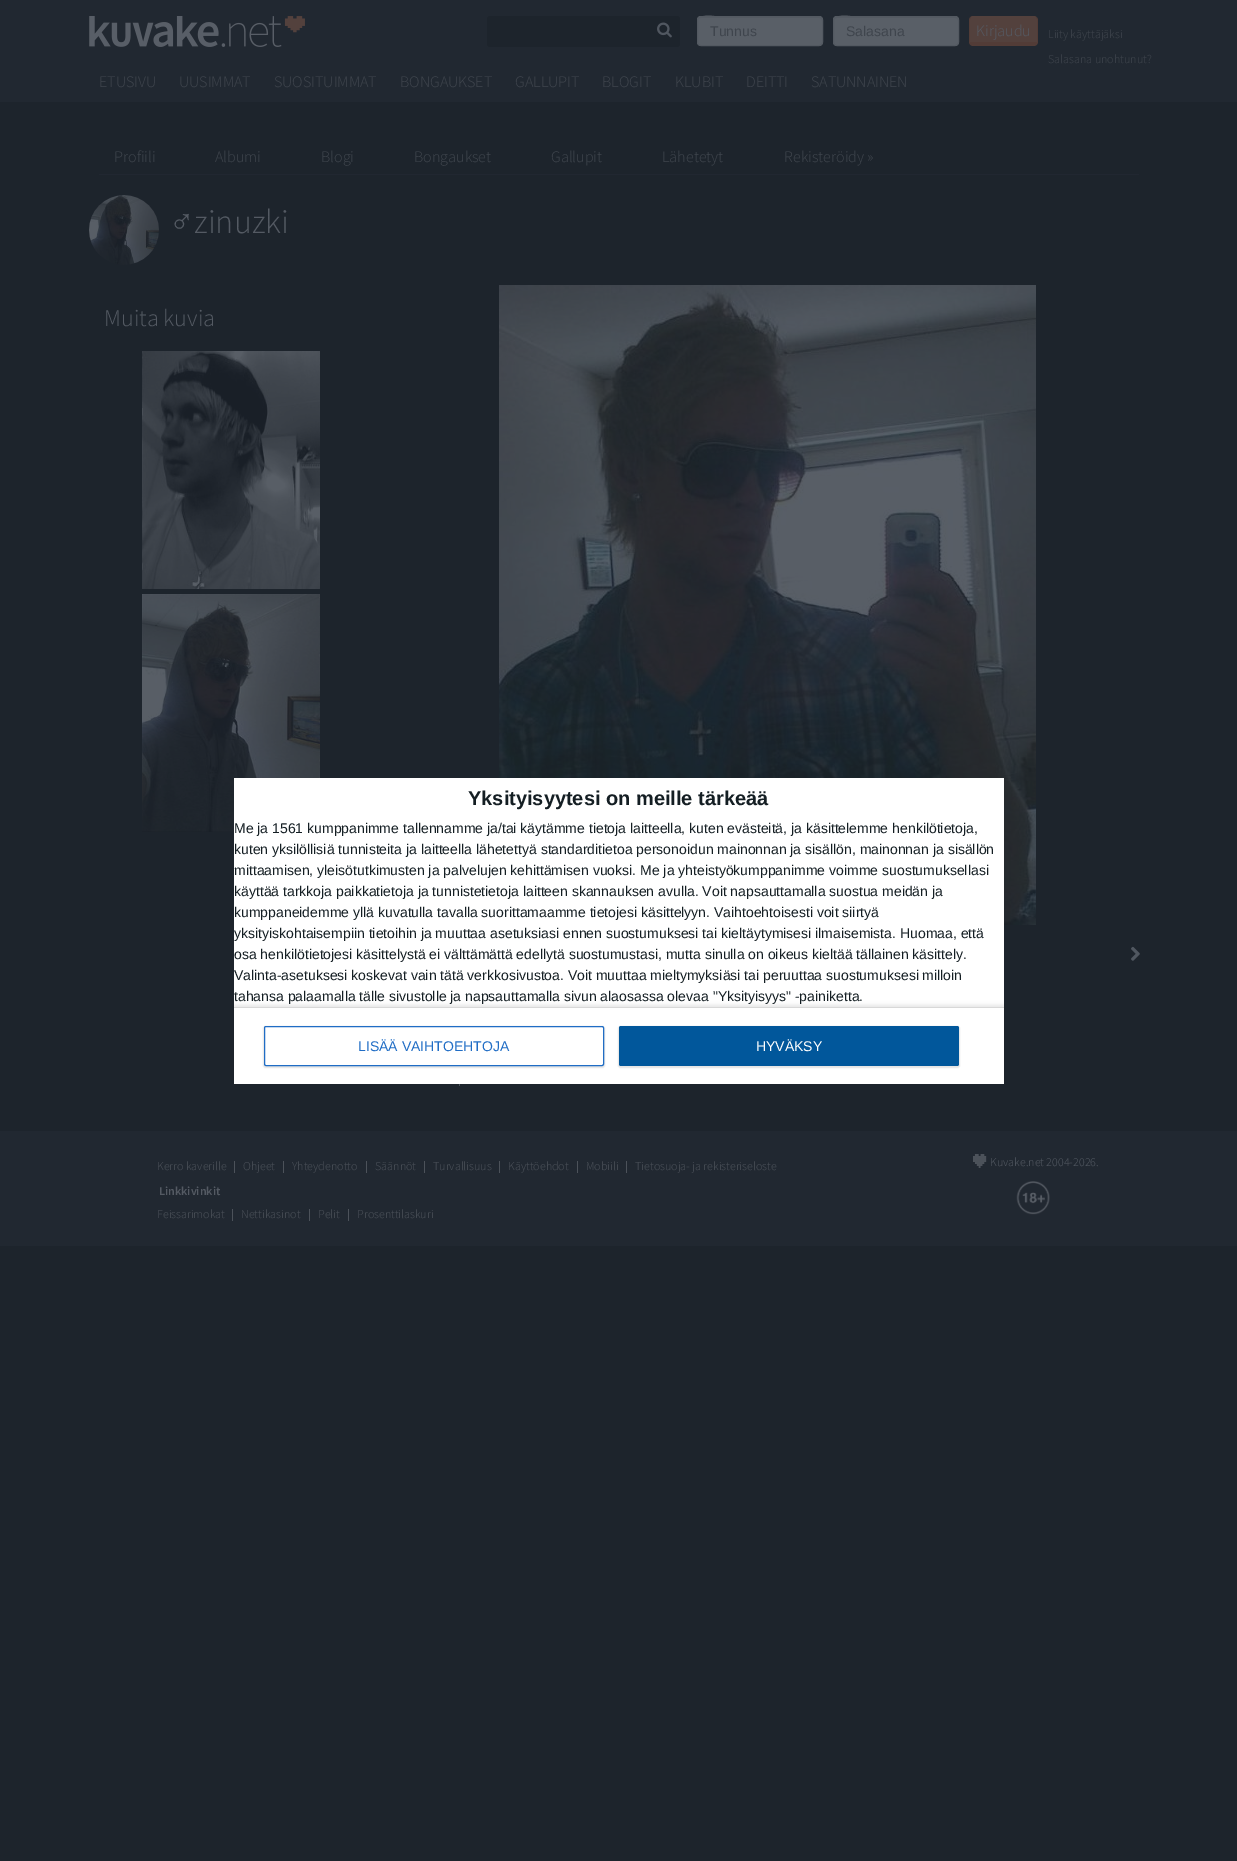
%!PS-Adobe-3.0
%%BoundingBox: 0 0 1237 1861
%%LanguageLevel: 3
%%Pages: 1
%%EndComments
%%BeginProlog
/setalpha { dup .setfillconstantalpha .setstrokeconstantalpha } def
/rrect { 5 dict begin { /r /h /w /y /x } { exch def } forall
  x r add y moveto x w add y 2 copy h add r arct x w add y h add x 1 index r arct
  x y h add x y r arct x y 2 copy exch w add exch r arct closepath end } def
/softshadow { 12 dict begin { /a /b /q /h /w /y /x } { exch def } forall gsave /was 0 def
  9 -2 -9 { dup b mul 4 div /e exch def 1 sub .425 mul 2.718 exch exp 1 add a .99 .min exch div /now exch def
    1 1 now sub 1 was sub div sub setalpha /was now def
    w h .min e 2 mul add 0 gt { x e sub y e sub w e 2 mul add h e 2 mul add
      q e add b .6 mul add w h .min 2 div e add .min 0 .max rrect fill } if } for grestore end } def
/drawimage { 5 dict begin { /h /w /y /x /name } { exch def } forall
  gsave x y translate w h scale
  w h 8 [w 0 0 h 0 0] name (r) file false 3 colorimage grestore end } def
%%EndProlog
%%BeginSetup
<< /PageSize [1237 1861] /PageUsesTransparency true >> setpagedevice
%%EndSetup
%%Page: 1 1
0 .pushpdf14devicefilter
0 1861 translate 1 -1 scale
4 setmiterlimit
0.114 0.141 0.173 setrgbcolor
0 0 1237 1861 rectfill
0.129 0.157 0.192 setrgbcolor
0 0 1237 102 rectfill
0.114 0.141 0.173 setrgbcolor
487 16 193 31 3 rrect fill
(images/1.raw) 657 22 15 16 drawimage
(images/2.raw) 89 16 216 31 drawimage
0.349 0.373 0.404 setrgbcolor
697 16 126 30 4 rrect fill
0.329 0.353 0.384 setrgbcolor
newpath 701 18 moveto 819 18 lineto 821 18 822 19 822 21 curveto 822 19 821 17 819 17 curveto 721 17 lineto 720 17 698 12 698 21 curveto 698 19 699 18 701 18 curveto closepath fill
0.325 0.349 0.38 setrgbcolor
697.5 16.5 125 29 3.5 rrect stroke
0.349 0.373 0.404 setrgbcolor
833 16 126 30 4 rrect fill
0.329 0.353 0.384 setrgbcolor
newpath 837 18 moveto 955 18 lineto 957 18 958 19 958 21 curveto 958 19 957 17 955 17 curveto 857 17 lineto 856 17 834 12 834 21 curveto 834 19 835 18 837 18 curveto closepath fill
0.325 0.349 0.38 setrgbcolor
833.5 16.5 125 29 3.5 rrect stroke
0.325 0.255 0.239 setrgbcolor
newpath 973 16 moveto 1034 16 lineto 1036 16 1037 18 1037 20 curveto 1037 42 lineto 970 42 lineto 970 20 lineto 970 18 971 16 973 16 curveto closepath fill
0.322 0.235 0.216 setrgbcolor
newpath 973 16 moveto 1034 16 lineto 1036 16 1038 18 1038 20 curveto 1038 42 lineto 1038 44 1036 46 1034 46 curveto 973 46 lineto 971 46 969 44 969 42 curveto 969 20 lineto 969 18 971 16 973 16 curveto closepath 973 16 moveto 1034 16 lineto 1036 16 1037 18 1037 20 curveto 1037 42 lineto 970 42 lineto 970 20 lineto 970 18 971 16 973 16 curveto closepath eofill
0.129 0.153 0.192 setrgbcolor
99 174 1040 1 rectfill
(images/3.raw) 89 195 70 70 drawimage
(images/4.raw) 142 351 178 238 drawimage
(images/5.raw) 142 594 178 238 drawimage
(images/6.raw) 499 285 537 640 drawimage
(images/7.raw) 1131 946 9 15 drawimage
0.298 0.322 0.353 setrgbcolor
459 1084 1 2 rectfill
0.129 0.157 0.192 setrgbcolor
0 1131 1237 115 rectfill
0.298 0.322 0.353 setrgbcolor
234 1161 1 12 rectfill
283 1161 1 12 rectfill
366 1161 1 12 rectfill
424 1161 1 12 rectfill
499 1161 1 12 rectfill
577 1161 1 12 rectfill
626 1161 1 12 rectfill
(images/8.raw) 973 1154 14 14 drawimage
(images/9.raw) 1016 1181 34 34 drawimage
232 1209 1 12 rectfill
309 1209 1 12 rectfill
348 1209 1 12 rectfill
1 setgray
234 778 770 306 rectfill
gsave
newpath 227 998 moveto 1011 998 lineto 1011 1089 lineto 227 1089 lineto closepath 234 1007 moveto 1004 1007 lineto 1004 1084 lineto 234 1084 lineto closepath eoclip newpath
0 setgray
234 1005 770 77 0 2 0.1 softshadow
grestore
0.847 setgray
234 1007 770 1 rectfill
0 setgray
263 1026 342 42 3 0.5 0.1 softshadow
1 setgray
264.5 1026.5 339 39 1.5 rrect gsave fill grestore
0.125 0.427 0.773 setrgbcolor
stroke
0 setgray
618 1026 342 42 3 0.5 0.1 softshadow
0.004 0.341 0.608 setrgbcolor
619 1026 340 40 2 rrect fill
/LiberationSans-Regular [14 0 0 -14 0 0] selectfont
0.247 0.271 0.302 setrgbcolor
710 36 moveto (Tunnus) show
846 36 moveto (Salasana) show
/SourceSansPro-Light [16 0 0 -16 0 0] selectfont
0.329 0.353 0.388 setrgbcolor
976 36 moveto (Kirjaudu) show
/SourceSansPro-Light [12 0 0 -12 0 0] selectfont
0.247 0.271 0.302 setrgbcolor
1048 38 moveto (Liity käyttäjäksi) show
1048 63 moveto (Salasana unohtunut?) show
/SourceSansPro-Light [16 0 0 -16 0 0] selectfont
99 87 moveto (ETUSIVU) show
179 87 moveto (UUSIMMAT) show
274 87 moveto (SUOSITUIMMAT) show
400 87 moveto (BONGAUKSET) show
515 87 moveto (GALLUPIT) show
602 87 moveto (BLOGIT) show
675 87 moveto (KLUBIT) show
746 87 moveto (DEITTI) show
811 87 moveto (SATUNNAINEN) show
114 162 moveto (Profiili) show
215 162 moveto (Albumi) show
321 162 moveto (Blogi) show
414 162 moveto (Bongaukset) show
551 162 moveto (Gallupit) show
662 162 moveto (Lähetetyt) show
784 162 moveto (Rekisteröidy ») show
/LiberationSans-Regular [34 0 0 -34 0 0] selectfont
0.329 0.353 0.388 setrgbcolor
169 233 moveto (♂) show
/SourceSansPro-Light [34 0 0 -34 0 0] selectfont
194 233 moveto (zinuzki) show
/SourceSansPro-Light [24 0 0 -24 0 0] selectfont
104 326 moveto (Muita kuvia) show
/SourceSansPro-Light [12 0 0 -12 0 0] selectfont
0.298 0.322 0.353 setrgbcolor
157 1170 moveto (Kerro kaverille) show
243 1170 moveto (Ohjeet) show
292 1170 moveto (Yhteydenotto) show
375 1170 moveto (Säännöt) show
433 1170 moveto (Turvallisuus) show
508 1170 moveto (Käyttöehdot) show
586 1170 moveto (Mobiili) show
635 1170 moveto (Tietosuoja- ja rekisteriseloste) show
0.329 0.353 0.388 setrgbcolor
990 1166 moveto (Kuvake.net 2004-2026.) show
/SourceSansPro-SemiBold [12 0 0 -12 0 0] selectfont
159 1195 moveto (Linkkivinkit) show
/SourceSansPro-Light [12 0 0 -12 0 0] selectfont
0.298 0.322 0.353 setrgbcolor
157 1218 moveto (Feissarimokat) show
241 1218 moveto (Nettikasinot) show
318 1218 moveto (Pelit) show
357 1218 moveto (Prosenttilaskuri) show
/LiberationSans-Bold [20 0 0 -20 0 0] selectfont
0.078 0.118 0.137 setrgbcolor
468 805 moveto (Yksityisyytesi on meille tärkeää) show
/LiberationSans-Regular [14 0 0 -14 0 0] selectfont
234 833 moveto (Me ja 1561 kumppanimme tallennamme ja/tai käytämme tietoja laitteella, kuten evästeitä, ja käsittelemme henkilötietoja,) show
234 854 moveto (kuten yksilöllisiä tunnisteita ja laitteella lähetettyä standarditietoa personoidun mainonnan ja sisällön, mainonnan ja sisällön) show
234 875 moveto (mittaamisen, yleisötutkimusten ja palvelujen kehittämisen vuoksi. Me ja yhteistyökumppanimme voimme suostumuksellasi) show
234 896 moveto (käyttää tarkkoja paikkatietoja ja tunnistetietoja laitteen skannauksen avulla. Voit napsauttamalla suostua meidän ja) show
234 917 moveto (kumppaneidemme yllä kuvatulla tavalla suorittamaamme tietojesi käsittelyyn. Vaihtoehtoisesti voit siirtyä) show
234 938 moveto (yksityiskohtaisempiin tietoihin ja muuttaa asetuksiasi ennen suostumuksesi tai kieltäytymisesi ilmaisemista. Huomaa, että) show
234 959 moveto (osa henkilötietojesi käsittelystä ei välttämättä edellytä suostumustasi, mutta sinulla on oikeus kieltää tällainen käsittely.) show
234 980 moveto (Valinta-asetuksesi koskevat vain tätä verkkosivustoa. Voit muuttaa mieltymyksiäsi tai peruuttaa suostumuksesi milloin) show
234 1001 moveto (tahansa palaamalla tälle sivustolle ja napsauttamalla sivun alaosassa olevaa "Yksityisyys" -painiketta.) show
0.125 0.427 0.773 setrgbcolor
358 1051 moveto (LISÄÄ VAIHTOEHTOJA) show
1 setgray
756 1051 moveto (HYVÄKSY) show
.poppdf14devicefilter showpage
%%EOF
